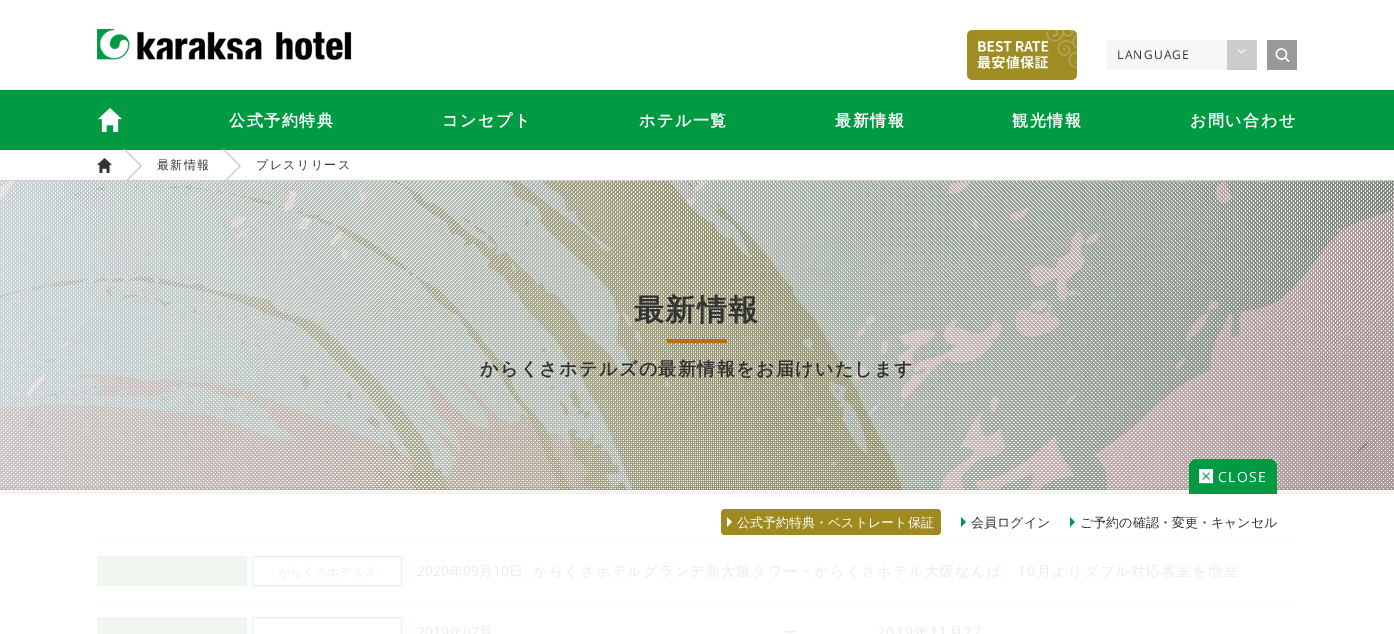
%!PS-Adobe-3.0
%%BoundingBox: 0 0 1394 634
%%LanguageLevel: 3
%%Pages: 1
%%EndComments
%%BeginProlog
/setalpha { dup .setfillconstantalpha .setstrokeconstantalpha } def
/rrect { 5 dict begin { /r /h /w /y /x } { exch def } forall
  x r add y moveto x w add y 2 copy h add r arct x w add y h add x 1 index r arct
  x y h add x y r arct x y 2 copy exch w add exch r arct closepath end } def
/softshadow { 12 dict begin { /a /b /q /h /w /y /x } { exch def } forall gsave /was 0 def
  9 -2 -9 { dup b mul 4 div /e exch def 1 sub .425 mul 2.718 exch exp 1 add a .99 .min exch div /now exch def
    1 1 now sub 1 was sub div sub setalpha /was now def
    w h .min e 2 mul add 0 gt { x e sub y e sub w e 2 mul add h e 2 mul add
      q e add b .6 mul add w h .min 2 div e add .min 0 .max rrect fill } if } for grestore end } def
/drawimage { 5 dict begin { /h /w /y /x /name } { exch def } forall
  gsave x y translate w h scale
  w h 8 [w 0 0 h 0 0] name (r) file false 3 colorimage grestore end } def
%%EndProlog
%%BeginSetup
<< /PageSize [1394 634] /PageUsesTransparency true >> setpagedevice
%%EndSetup
%%Page: 1 1
0 .pushpdf14devicefilter
0 634 translate 1 -1 scale
4 setmiterlimit
1 setgray
0 0 1394 634 rectfill
(images/1.raw) 97 29 255 31 drawimage
(images/2.raw) 967 30 110 50 drawimage
0.965 setgray
1107 40 120 30 rectfill
0.8 setgray
1227 40 30 30 rectfill
(images/3.raw) 1237 49 9 5 drawimage
0.6 setgray
1267 40 30 30 rectfill
(images/4.raw) 1275 48 15 14 drawimage
0 0.604 0.259 setrgbcolor
0 90 1394 60 rectfill
(images/5.raw) 98 108 24 24 drawimage
0.8 setgray
newpath 125 183 moveto 125 149 lineto 142 166 lineto closepath fill
1 setgray
newpath 123 183 moveto 123 149 lineto 140 166 lineto closepath fill
(images/6.raw) 97 158 15 15 drawimage
0.8 setgray
newpath 224 183 moveto 224 149 lineto 241 166 lineto closepath fill
1 setgray
newpath 222 183 moveto 222 149 lineto 239 166 lineto closepath fill
(images/7.raw) 0 181 1394 309 drawimage
0.8 setgray
0 180 1394 1 rectfill
(images/8.raw) 1 182 1393 307 drawimage
0.725 0.439 0.047 setrgbcolor
667 339 60 4 rectfill
0.98 setgray
[1 1] 0 setdash
newpath 97 540.5 moveto 1297 540.5 lineto stroke
0.945 0.965 0.945 setrgbcolor
97 556 150 30 rectfill
0.902 0.953 0.925 setrgbcolor
[] 0 setdash
252.5 556.5 149 29 rectstroke
0.98 setgray
[1 1] 0 setdash
newpath 97 601.5 moveto 1297 601.5 lineto stroke
0.945 0.965 0.945 setrgbcolor
97 617 150 17 rectfill
0.902 0.953 0.925 setrgbcolor
[] 0 setdash
252.5 617.5 149 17 rectstroke
gsave
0 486 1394 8 rectclip
0 setgray
0 494 1394 140 0 10 0.1 softshadow
grestore
0 0.604 0.259 setrgbcolor
newpath 1197 459 moveto 1269 459 lineto 1273.5 459 1277 462.5 1277 467 curveto 1277 494 lineto 1189 494 lineto 1189 467 lineto 1189 462.5 1192.5 459 1197 459 curveto closepath fill
(images/9.raw) 1199 469 14 15 drawimage
0.624 0.541 0.125 setrgbcolor
721 509 220 26 4 rrect fill
1 setgray
newpath 727 527 moveto 727 517 lineto 732 522 lineto closepath fill
0 0.604 0.259 setrgbcolor
newpath 961 527 moveto 961 517 lineto 966 522 lineto closepath fill
newpath 1070 527 moveto 1070 517 lineto 1075 522 lineto closepath fill
/OpenSans-Regular [12 0 0 -12 0 0] selectfont
0.2 setgray
1117 59 moveto 1.25 0 (LANGUAGE) ashow
/WenQuanYiZenHei-Bold [16 0 0 -16 0 0] selectfont
1 setgray
229 126 moveto 1.5 0 (公式予約特典) ashow
442 126 moveto 1.5 0 (コンセプト) ashow
639 126 moveto 1.5 0 (ホテル一覧) ashow
835 126 moveto 1.5 0 (最新情報) ashow
1012 126 moveto 1.5 0 (観光情報) ashow
1190 126 moveto 1.5 0 (お問い合わせ) ashow
/WenQuanYiZenHei-Medium [12 0 0 -12 0 0] selectfont
0.2 setgray
157 169 moveto 1.4 0 (最新情報) ashow
256 169 moveto 1.4 0 (プレスリリース) ashow
/WenQuanYiZenHei-Bold [30 0 0 -30 0 0] selectfont
634 320 moveto 1.4 0 (最新情報) ashow
/WenQuanYiZenHei-Bold [18 0 0 -18 0 0] selectfont
480 375 moveto 1.4 0 (からくさホテルズの最新情報をお届けいたします) ashow
/WenQuanYiZenHei-Medium [12 0 0 -12 0 0] selectfont
0.902 0.953 0.925 setrgbcolor
278 576 moveto (からくさホテルズ) show
/OpenSans-Regular [14 0 0 -14 0 0] selectfont
0.922 setgray
417 576 moveto (2020) show
/WenQuanYiZenHei-Medium [14 0 0 -14 0 0] selectfont
449 576 moveto (年) show
/OpenSans-Regular [14 0 0 -14 0 0] selectfont
463 576 moveto (09) show
/WenQuanYiZenHei-Medium [14 0 0 -14 0 0] selectfont
479 576 moveto (月) show
/OpenSans-Regular [14 0 0 -14 0 0] selectfont
493 576 moveto (10) show
/WenQuanYiZenHei-Medium [14 0 0 -14 0 0] selectfont
509 576 moveto (日) show
533 576 moveto 1.4 0 (からくさホテルグランデ新大阪タワー・からくさホテル大阪なんば、) ashow
/OpenSans-Regular [14 0 0 -14 0 0] selectfont
1018 576 moveto 1.4 0 (10) ashow
/WenQuanYiZenHei-Medium [14 0 0 -14 0 0] selectfont
1037 576 moveto 1.4 0 (月よりダブル対応客室を増室) ashow
/OpenSans-Regular [14 0 0 -14 0 0] selectfont
417 637 moveto (2019) show
/WenQuanYiZenHei-Medium [14 0 0 -14 0 0] selectfont
449 637 moveto (年) show
/OpenSans-Regular [14 0 0 -14 0 0] selectfont
463 637 moveto (07) show
/WenQuanYiZenHei-Medium [14 0 0 -14 0 0] selectfont
479 637 moveto (月) show
784 637 moveto 1.4 0 (ー) ashow
/OpenSans-Regular [14 0 0 -14 0 0] selectfont
877 637 moveto 1.4 0 (2019) ashow
/WenQuanYiZenHei-Medium [14 0 0 -14 0 0] selectfont
914 637 moveto 1.4 0 (年) ashow
/OpenSans-Regular [14 0 0 -14 0 0] selectfont
930 637 moveto 1.4 0 (11) ashow
/WenQuanYiZenHei-Medium [14 0 0 -14 0 0] selectfont
949 637 moveto 1.4 0 (月) ashow
/OpenSans-Regular [14 0 0 -14 0 0] selectfont
964 637 moveto 1.4 0 (27) ashow
1 setgray
1218 482 moveto 1.4 0 (CLOSE) ashow
/WenQuanYiZenHei-Medium [13 0 0 -13 0 0] selectfont
737 527 moveto (公式予約特典・ベストレート保証) show
0.2 setgray
971 527 moveto (会員ログイン) show
1080 527 moveto (ご予約の確認・変更・キャンセル) show
.poppdf14devicefilter showpage
%%EOF
